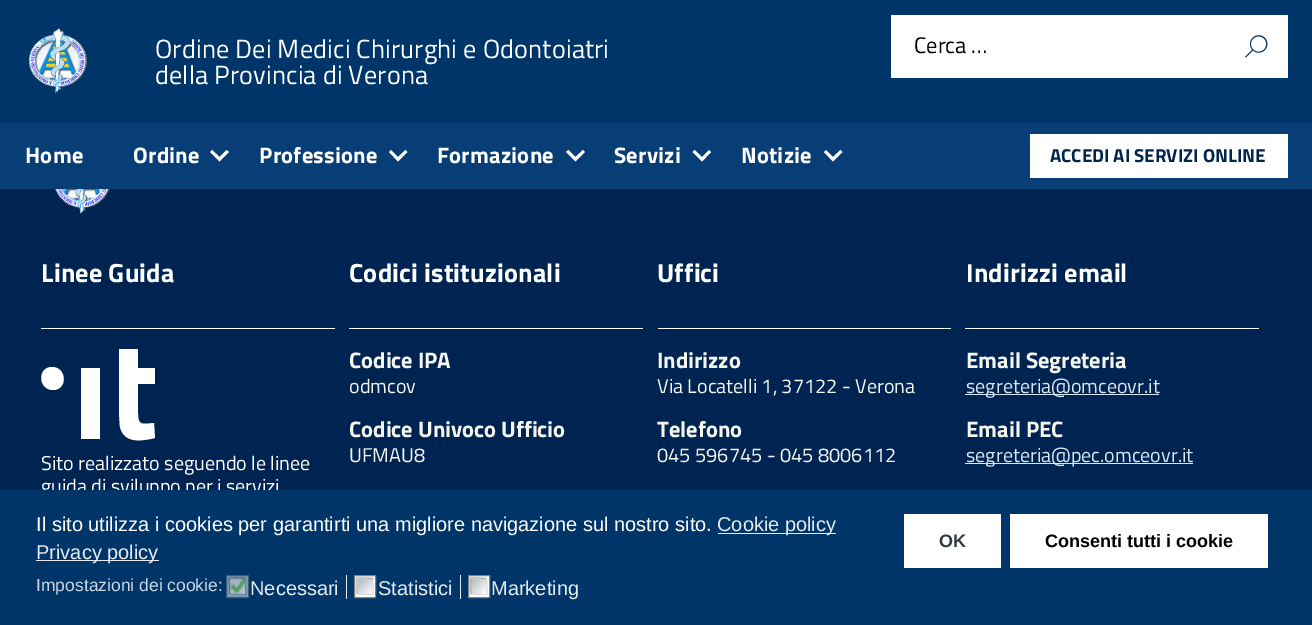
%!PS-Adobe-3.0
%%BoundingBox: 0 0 1312 625
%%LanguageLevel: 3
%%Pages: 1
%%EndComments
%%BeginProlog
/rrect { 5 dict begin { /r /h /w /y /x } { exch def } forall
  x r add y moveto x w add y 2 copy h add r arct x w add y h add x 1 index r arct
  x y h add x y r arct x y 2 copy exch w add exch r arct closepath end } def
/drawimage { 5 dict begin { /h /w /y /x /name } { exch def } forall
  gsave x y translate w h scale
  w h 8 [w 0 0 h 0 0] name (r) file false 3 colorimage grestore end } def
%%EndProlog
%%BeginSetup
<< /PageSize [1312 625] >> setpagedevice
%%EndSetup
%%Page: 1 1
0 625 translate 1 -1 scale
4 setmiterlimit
0 0.141 0.322 setrgbcolor
0 0 1312 625 rectfill
0 0.208 0.412 setrgbcolor
0 0 1312 123 rectfill
(images/1.raw) 29 28 58 66 drawimage
1 setgray
891 15 397 63 rectfill
(images/2.raw) 1245 35 23 23 drawimage
0.031 0.243 0.463 setrgbcolor
0 123 1312 66 rectfill
1 setgray
newpath 212 150 moveto 210 152 lineto 219.5 161.5 lineto 229 152 lineto 226.5 150 lineto 219.5 157 lineto closepath fill
newpath 391 150 moveto 389 152 lineto 398 161.5 lineto 407.5 152 lineto 405.5 150 lineto 398 157 lineto closepath fill
newpath 568.5 150 moveto 566 152 lineto 575.5 161.5 lineto 585 152 lineto 583 150 lineto 575.5 157 lineto closepath fill
newpath 694.5 150 moveto 692.5 152 lineto 702 161.5 lineto 711 152 lineto 709 150 lineto 702 157 lineto closepath fill
newpath 826 150 moveto 824 152 lineto 833 161.5 lineto 842.5 152 lineto 840.5 150 lineto 833 157 lineto closepath fill
1030 134 258 44 rectfill
(images/3.raw) 55 189 55 25 drawimage
41 328 294 1 rectfill
newpath 81 439 moveto 81 368 lineto 100 368 lineto 100 439 lineto closepath 155 384 moveto 138 384 lineto 138 413 lineto 138 426 142 424 154 423 curveto 155 438 lineto 142 441 124 444 120 427 curveto 119 419 119 411 119 403 curveto 119 349 lineto 138 349 lineto 138 368 lineto 155 368 lineto closepath 53 390 moveto 38 390 37 367 52 367 curveto 67 367 68 390 53 390 curveto closepath fill
349 328 294 1 rectfill
658 328 293 1 rectfill
965 328 294 1 rectfill
0.851 0.902 0.949 setrgbcolor
965 394 194 1 rectfill
965 463 228 1 rectfill
/TitilliumWeb-Regular [26.25 0 0 -26.25 0 0] selectfont
1 setgray
155 58 moveto 0.15 0 (Ordine Dei Medici Chirurghi e Odontoiatri) ashow
155 84 moveto 0.15 0 (della Provincia di Verona) ashow
/TitilliumWeb-Regular [22.5 0 0 -22.5 0 0] selectfont
0 setgray
914 53 moveto (Cerca …) show
/TitilliumWeb-Bold [22.5 0 0 -22.5 0 0] selectfont
1 setgray
25 163 moveto 0.25 0 (Home) ashow
133 163 moveto 0.25 0 (Ordine) ashow
259 163 moveto 0.25 0 (Professione) ashow
437 163 moveto 0.25 0 (Formazione) ashow
614 163 moveto 0.25 0 (Servizi) ashow
741 163 moveto 0.25 0 (Notizie) ashow
/TitilliumWeb-Bold [18.75 0 0 -18.75 0 0] selectfont
0 0.149 0.302 setrgbcolor
1050 162 moveto (ACCEDI AI SERVIZI ONLINE) show
/TitilliumWeb-Bold [26.25 0 0 -26.25 0 0] selectfont
1 setgray
41 282 moveto 0.2 0 (Linee Guida) ashow
/TitilliumWeb-Regular [20 0 0 -20 0 0] selectfont
41 470 moveto (Sito realizzato seguendo le linee) show
41 493 moveto (guida di sviluppo per i servizi) show
/TitilliumWeb-Bold [26.25 0 0 -26.25 0 0] selectfont
349 282 moveto 0.2 0 (Codici istituzionali) ashow
/TitilliumWeb-Bold [22.5 0 0 -22.5 0 0] selectfont
0.961 0.961 0.941 setrgbcolor
349 368 moveto (Codice IPA) show
/TitilliumWeb-Regular [20 0 0 -20 0 0] selectfont
349 393 moveto (odmcov) show
/TitilliumWeb-Bold [22.5 0 0 -22.5 0 0] selectfont
349 437 moveto (Codice Univoco Ufficio) show
/TitilliumWeb-Regular [20 0 0 -20 0 0] selectfont
349 462 moveto (UFMAU8) show
/TitilliumWeb-Bold [26.25 0 0 -26.25 0 0] selectfont
1 setgray
657 282 moveto 0.2 0 (Uffici) ashow
/TitilliumWeb-Bold [22.5 0 0 -22.5 0 0] selectfont
0.961 0.961 0.941 setrgbcolor
657 368 moveto (Indirizzo) show
/TitilliumWeb-Regular [20 0 0 -20 0 0] selectfont
657 393 moveto (Via Locatelli 1, 37122 - Verona) show
/TitilliumWeb-Bold [22.5 0 0 -22.5 0 0] selectfont
657 437 moveto (Telefono) show
/TitilliumWeb-Regular [20 0 0 -20 0 0] selectfont
657 462 moveto (045 596745 - 045 8006112) show
/TitilliumWeb-Bold [26.25 0 0 -26.25 0 0] selectfont
1 setgray
966 282 moveto 0.2 0 (Indirizzi email) ashow
/TitilliumWeb-Bold [22.5 0 0 -22.5 0 0] selectfont
0.961 0.961 0.941 setrgbcolor
966 368 moveto (Email Segreteria) show
/TitilliumWeb-Regular [20 0 0 -20 0 0] selectfont
0.851 0.902 0.949 setrgbcolor
966 393 moveto (segreteria@omceovr.it) show
/TitilliumWeb-Bold [22.5 0 0 -22.5 0 0] selectfont
0.961 0.961 0.941 setrgbcolor
966 437 moveto (Email PEC) show
/TitilliumWeb-Regular [20 0 0 -20 0 0] selectfont
0.851 0.902 0.949 setrgbcolor
966 462 moveto (segreteria@pec.omceovr.it) show
0 0.208 0.412 setrgbcolor
0 490 1312 135 rectfill
/LiberationSans-Regular [20 0 0 -20 0 0] selectfont
1 setgray
36 531 moveto (Il sito utilizza i cookies per garantirti una migliore navigazione sul nostro sito.) show
0.902 0.922 0.941 setrgbcolor
718 533 118 1 rectfill
717 531 moveto (Cookie policy) show
36 560 123 1 rectfill
36 559 moveto (Privacy policy) show
1 setgray
904 514 97 54 rectfill
/LiberationSans-Bold [18 0 0 -18 0 0] selectfont
0.196 0.231 0.251 setrgbcolor
939 547 moveto (OK) show
1 setgray
1010 514 258 54 rectfill
0 setgray
1045 547 moveto (Consenti tutti i cookie) show
/LiberationSans-Regular [17.5 0 0 -17.5 0 0] selectfont
0.8 0.843 0.882 setrgbcolor
36 591 moveto (Impostazioni dei cookie:) show
0.502 0.604 0.706 setrgbcolor
226.5 575.5 22 22 0.5 rrect gsave fill grestore
0.251 0.357 0.459 setrgbcolor
stroke
(images/4.raw) 228 577 19 19 drawimage
0.431 0.537 0.643 setrgbcolor
1.2 setlinewidth
newpath 245.5 578.5 moveto 245.5 586 lineto 245.5 596.5 248 594.5 237.5 594.5 curveto 229.5 594 lineto stroke
0.353 0.455 0.557 setrgbcolor
newpath 229.5 594 moveto 229.5 586 lineto 229.5 576 227 578 237.5 578 curveto 245.5 578.5 lineto stroke
0.902 0.922 0.941 setrgbcolor
346 575 1 24 rectfill
/LiberationSans-Regular [20 0 0 -20 0 0] selectfont
250 595 moveto (Necessari) show
1 setgray
354.5 575.5 21 22 0.5 rrect gsave fill grestore
0.502 setgray
1 setlinewidth
stroke
gsave newpath 358 579 moveto 373 579 lineto 373 594 lineto 358 594 lineto closepath clip newpath
<< /ShadingType 2 /ColorSpace /DeviceRGB /Coords [358 579 373 594] /Extend [true true] /Function << /FunctionType 2 /Domain [0 1] /C0 [0.694 0.714 0.745] /C1 [1 1 1] /N 1 >> >> shfill grestore
0.863 0.867 0.871 setrgbcolor
1.2 setlinewidth
newpath 373 578.5 moveto 373 586 lineto 373 596.5 375.5 594.5 365 594.5 curveto 357 594 lineto stroke
0.702 setgray
newpath 357 594 moveto 357 586 lineto 357 576 354.5 578 365 578 curveto 373 578.5 lineto stroke
0.902 0.922 0.941 setrgbcolor
460 575 1 24 rectfill
378 595 moveto (Statistici) show
1 setgray
468.5 575.5 21 22 0.5 rrect gsave fill grestore
0.502 setgray
1 setlinewidth
stroke
gsave newpath 471 579 moveto 486 579 lineto 486 594 lineto 471 594 lineto closepath clip newpath
<< /ShadingType 2 /ColorSpace /DeviceRGB /Coords [471 579 486 594] /Extend [true true] /Function << /FunctionType 2 /Domain [0 1] /C0 [0.694 0.714 0.745] /C1 [1 1 1] /N 1 >> >> shfill grestore
0.863 0.867 0.871 setrgbcolor
1.2 setlinewidth
newpath 486.5 578.5 moveto 487 586 lineto 487 596.5 489 594.5 479 594.5 curveto 471 594 lineto stroke
0.702 setgray
newpath 471 594 moveto 470.5 586 lineto 470.5 576 468.5 578 479 578 curveto 486.5 578.5 lineto stroke
0.902 0.922 0.941 setrgbcolor
491 595 moveto (Marketing) show
showpage
%%EOF
